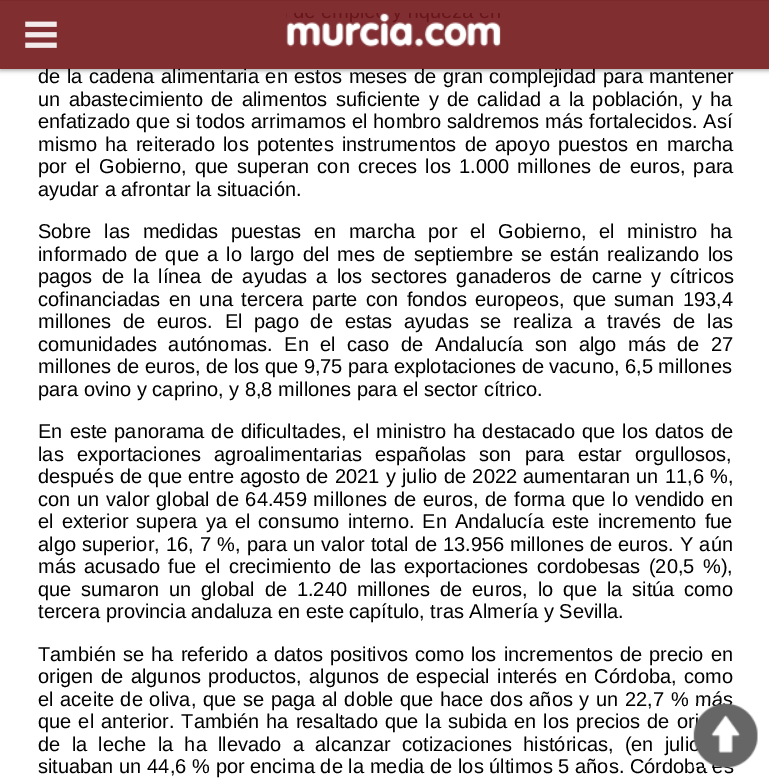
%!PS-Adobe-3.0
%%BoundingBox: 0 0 769 779
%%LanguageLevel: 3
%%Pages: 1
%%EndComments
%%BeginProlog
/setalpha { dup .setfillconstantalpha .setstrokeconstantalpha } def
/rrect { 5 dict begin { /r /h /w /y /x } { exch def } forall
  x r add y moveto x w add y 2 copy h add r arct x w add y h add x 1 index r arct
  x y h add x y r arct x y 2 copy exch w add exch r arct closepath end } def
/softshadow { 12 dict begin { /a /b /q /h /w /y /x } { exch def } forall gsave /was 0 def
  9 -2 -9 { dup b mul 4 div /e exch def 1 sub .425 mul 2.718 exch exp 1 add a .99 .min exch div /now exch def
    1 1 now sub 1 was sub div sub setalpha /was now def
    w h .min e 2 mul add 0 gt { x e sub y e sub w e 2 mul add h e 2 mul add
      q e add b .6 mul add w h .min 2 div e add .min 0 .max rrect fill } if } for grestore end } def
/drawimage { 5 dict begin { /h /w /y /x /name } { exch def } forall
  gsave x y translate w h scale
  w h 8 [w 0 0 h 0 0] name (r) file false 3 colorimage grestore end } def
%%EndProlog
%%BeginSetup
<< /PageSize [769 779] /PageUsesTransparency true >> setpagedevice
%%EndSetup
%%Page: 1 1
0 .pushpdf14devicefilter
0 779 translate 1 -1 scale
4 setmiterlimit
1 setgray
0 0 769 779 rectfill
0.8 setgray
0 0 769 1 rectfill
gsave
newpath 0 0 moveto 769 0 lineto 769 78 lineto 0 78 lineto closepath 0 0 moveto 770 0 lineto 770 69 lineto 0 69 lineto closepath eoclip newpath
0.667 setgray
0 3 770 68 0 2 0.9 softshadow
grestore
/LiberationSans-Regular [20 0 0 -20 0 0] selectfont
0 setgray
38 83 moveto 1 0 32 (de la cadena alimentaria en estos meses de gran complejidad para mantener) widthshow
0.9 setalpha
0.447 0.09 0.102 setrgbcolor
0 0 769 69 rectfill
1 setalpha
(images/1.raw) 286 13 215 34 drawimage
(images/2.raw) 25 21 32 27 drawimage
0 setgray
38 106 moveto 2.75 0 32 (un abastecimiento de alimentos suficiente y de calidad a la población, y ha) widthshow
38 128 moveto 0.5 0 32 (enfatizado que si todos arrimamos el hombro saldremos más fortalecidos. Así) widthshow
38 151 moveto 2.75 0 32 (mismo ha reiterado los potentes instrumentos de apoyo puestos en marcha) widthshow
38 173 moveto 2.75 0 32 (por el Gobierno, que superan con creces los 1.000 millones de euros, para) widthshow
38 196 moveto (ayudar a afrontar la situación.) show
38 238 moveto 7.25 0 32 (Sobre las medidas puestas en marcha por el Gobierno, el ministro ha) widthshow
38 261 moveto 2.6 0 32 (informado de que a lo largo del mes de septiembre se están realizando los) widthshow
38 283 moveto 3.75 0 32 (pagos de la línea de ayudas a los sectores ganaderos de carne y cítricos) widthshow
38 306 moveto 2.9 0 32 (cofinanciadas en una tercera parte con fondos europeos, que suman 193,4) widthshow
38 328 moveto 6.25 0 32 (millones de euros. El pago de estas ayudas se realiza a través de las) widthshow
38 351 moveto 5.9 0 32 (comunidades autónomas. En el caso de Andalucía son algo más de 27) widthshow
38 373 moveto (millones de euros, de los que 9,75 para explotaciones de vacuno, 6,5 millones) show
38 396 moveto (para ovino y caprino, y 8,8 millones para el sector cítrico.) show
38 438 moveto 1.5 0 32 (En este panorama de dificultades, el ministro ha destacado que los datos de) widthshow
38 461 moveto 7.5 0 32 (las exportaciones agroalimentarias españolas son para estar orgullosos,) widthshow
38 483 moveto 0.75 0 32 (después de que entre agosto de 2021 y julio de 2022 aumentaran un 11,6 %,) widthshow
38 506 moveto 1.25 0 32 (con un valor global de 64.459 millones de euros, de forma que lo vendido en) widthshow
38 528 moveto 2.5 0 32 (el exterior supera ya el consumo interno. En Andalucía este incremento fue) widthshow
38 551 moveto 0.6 0 32 (algo superior, 16, 7 %, para un valor total de 13.956 millones de euros. Y aún) widthshow
38 573 moveto 2.9 0 32 (más acusado fue el crecimiento de las exportaciones cordobesas \(20,5 %\),) widthshow
38 596 moveto 4.4 0 32 (que sumaron un global de 1.240 millones de euros, lo que la sitúa como) widthshow
38 618 moveto (tercera provincia andaluza en este capítulo, tras Almería y Sevilla.) show
38 661 moveto 1.6 0 32 (También se ha referido a datos positivos como los incrementos de precio en) widthshow
38 683 moveto 1.9 0 32 (origen de algunos productos, algunos de especial interés en Córdoba, como) widthshow
38 706 moveto 1.2 0 32 (el aceite de oliva, que se paga al doble que hace dos años y un 22,7 % más) widthshow
38 728 moveto 1.5 0 32 (que el anterior. También ha resaltado que la subida en los precios de ori) widthshow
38 751 moveto 5.75 0 32 (de la leche la ha llevado a alcanzar cotizaciones históricas, \(en julio) widthshow
38 773 moveto 0.2 0 32 (situaban un 44,6 % por encima de la media de los últimos 5 años. Córdoba es) widthshow
(images/3.raw) 693 703 65 65 drawimage
.poppdf14devicefilter showpage
%%EOF
